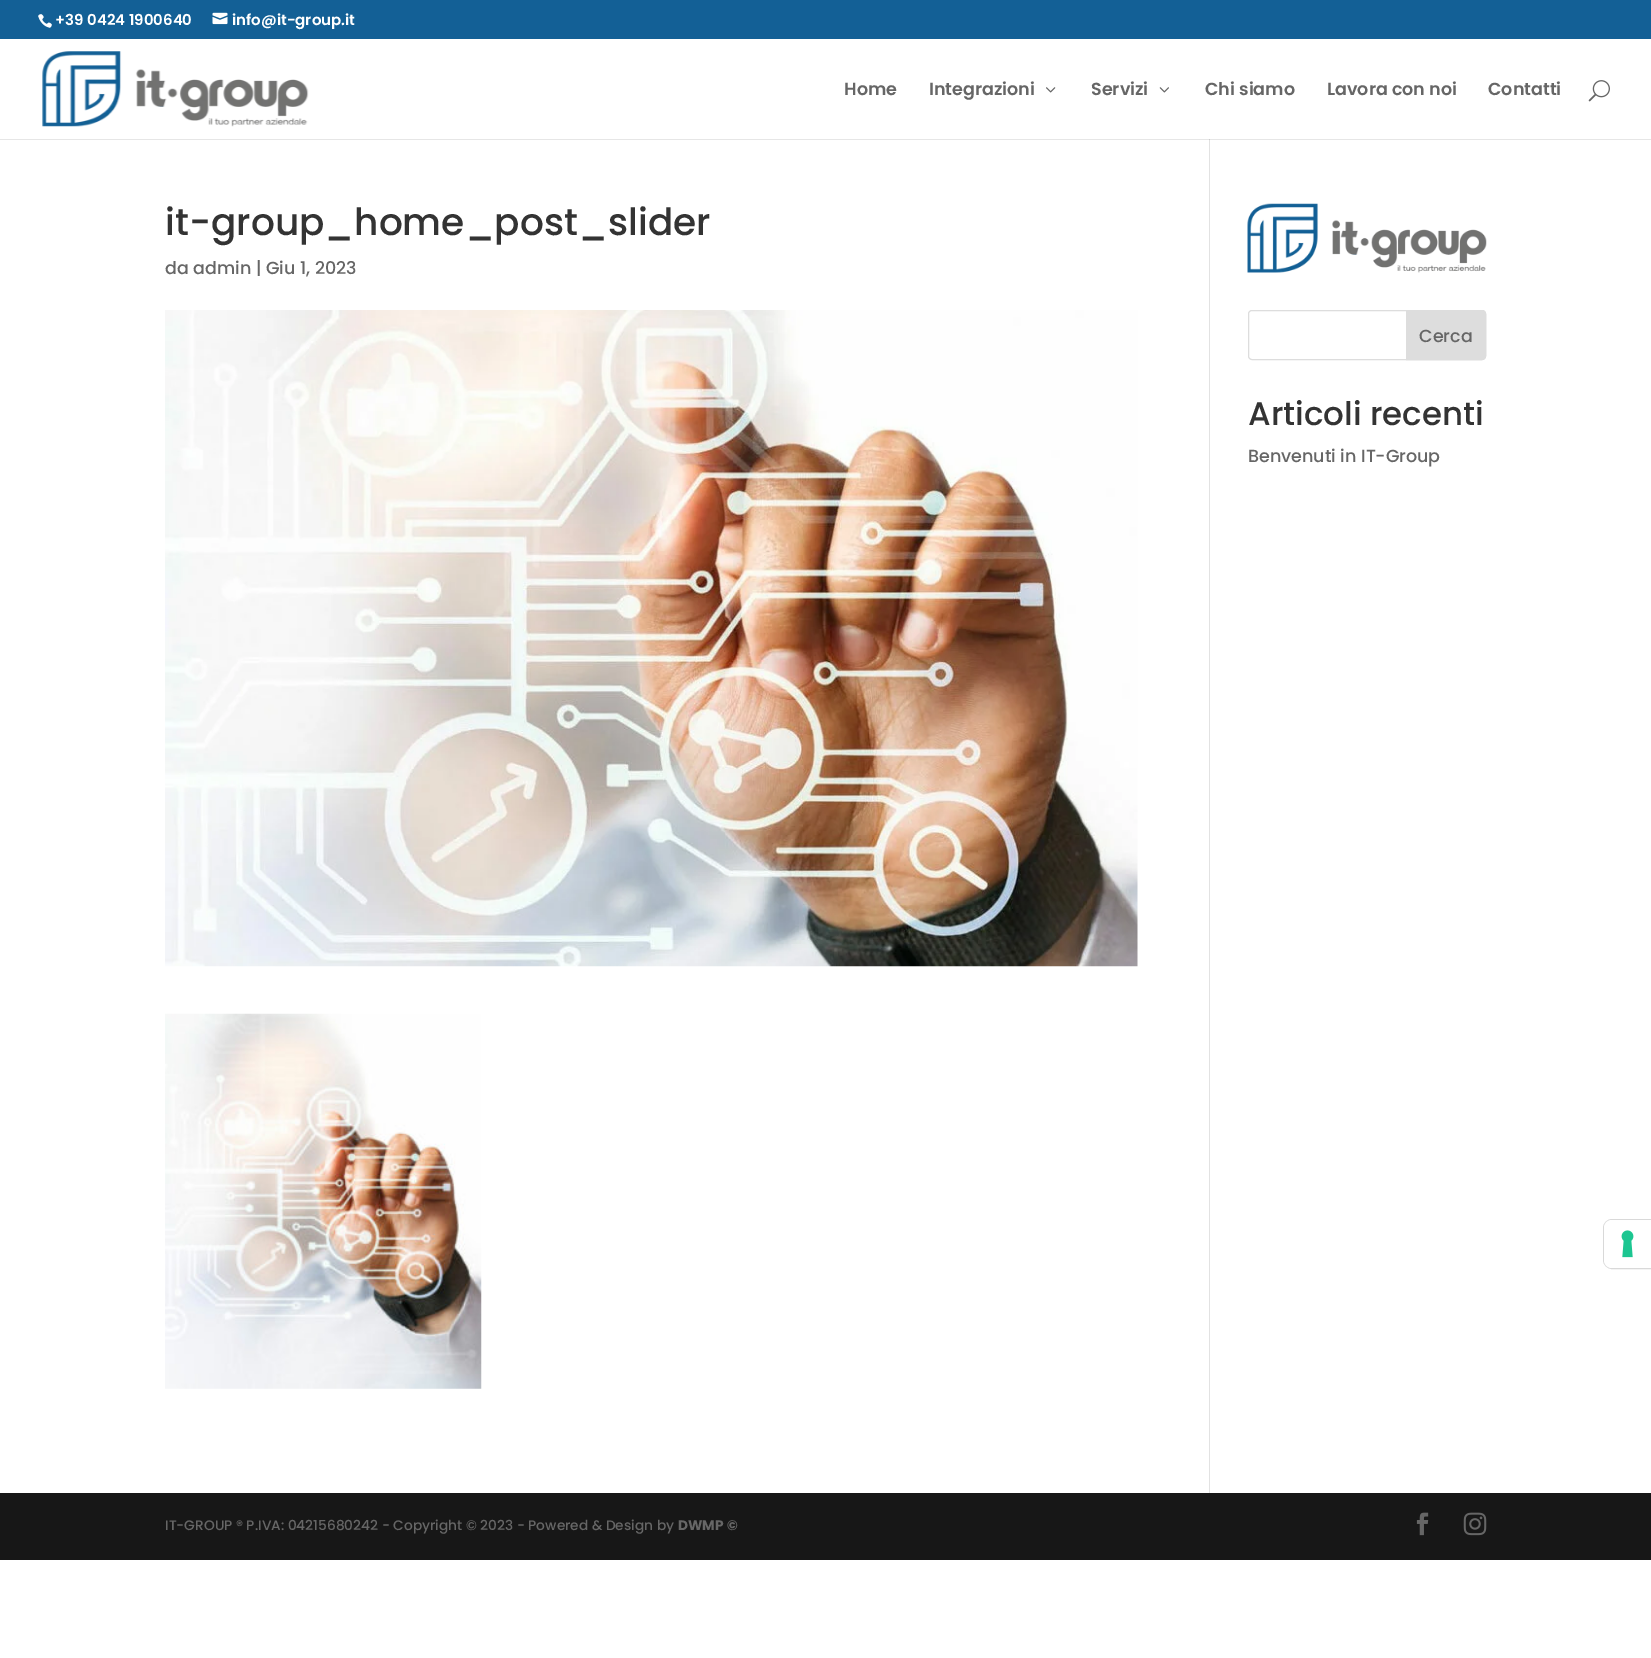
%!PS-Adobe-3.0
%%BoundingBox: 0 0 1651 1658
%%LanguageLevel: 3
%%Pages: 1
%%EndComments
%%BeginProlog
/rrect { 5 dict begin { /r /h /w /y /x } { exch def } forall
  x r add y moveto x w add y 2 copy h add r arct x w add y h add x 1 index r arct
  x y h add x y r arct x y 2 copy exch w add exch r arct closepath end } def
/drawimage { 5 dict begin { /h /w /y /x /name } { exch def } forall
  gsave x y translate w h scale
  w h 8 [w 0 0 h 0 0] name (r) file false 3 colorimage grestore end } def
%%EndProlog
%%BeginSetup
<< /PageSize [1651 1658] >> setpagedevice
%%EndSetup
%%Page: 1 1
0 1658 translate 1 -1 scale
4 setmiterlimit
1 setgray
0 0 1651 1658 rectfill
0.902 setgray
0 139 1651 1 rectfill
0.075 0.376 0.588 setrgbcolor
0 0 1651 39 rectfill
(images/1.raw) 38 14 14 14 drawimage
(images/2.raw) 212 12 16 13 drawimage
(images/3.raw) 42 51 267 76 drawimage
(images/4.raw) 1046 87 10 6 drawimage
(images/5.raw) 1159 87 10 6 drawimage
(images/6.raw) 1588 80 22 22 drawimage
0.886 setgray
1209 140 1 1353 rectfill
0.796 setgray
1209 139 1 1 rectfill
(images/7.raw) 165 310 973 657 drawimage
(images/8.raw) 165 1013 317 376 drawimage
(images/9.raw) 1247 203 240 70 drawimage
0.867 setgray
1248.5 310.5 237 49 3.5 rrect stroke
newpath 1406.5 310.5 moveto 1482 310.5 lineto 1484 310.5 1485.5 312 1485.5 314 curveto 1485.5 356 lineto 1485.5 358 1484 359.5 1482 359.5 curveto 1406.5 359.5 lineto closepath gsave fill grestore
stroke
0.09 setgray
0 1493 1651 67 rectfill
(images/10.raw) 1416 1512 13 24 drawimage
(images/11.raw) 1463 1512 24 24 drawimage
0.851 setgray
newpath 1612 1219.5 moveto 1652.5 1219.5 lineto 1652.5 1268.5 lineto 1612 1268.5 lineto 1607.5 1268.5 1603.5 1264.5 1603.5 1260 curveto 1603.5 1228 lineto 1603.5 1223.5 1607.5 1219.5 1612 1219.5 curveto closepath stroke
1 setgray
newpath 1612 1220 moveto 1651 1220 lineto 1651 1268 lineto 1612 1268 lineto 1607.5 1268 1604 1264.5 1604 1260 curveto 1604 1228 lineto 1604 1223.5 1607.5 1220 1612 1220 curveto closepath fill
(images/12.raw) 1621 1230 13 28 drawimage
/Poppins-SemiBold [15 0 0 -15 0 0] selectfont
55 25 moveto (+39 0424 1900640) show
232 25 moveto (info@it-group.it) show
/Poppins-SemiBold [17.5 0 0 -17.5 0 0] selectfont
0.4 setgray
844 95 moveto (Home) show
929 95 moveto (Integrazioni) show
1091 95 moveto (Servizi) show
1205 95 moveto (Chi siamo) show
1327 95 moveto (Lavora con noi) show
1488 95 moveto (Contatti) show
/Poppins-Medium [37.5 0 0 -37.5 0 0] selectfont
0.2 setgray
165 235 moveto (it-group_home_post_slider) show
/Poppins-Medium [17.5 0 0 -17.5 0 0] selectfont
0.4 setgray
165 274 moveto (da admin | Giu 1, 2023) show
1419 342 moveto (Cerca) show
/Poppins-Medium [32.5 0 0 -32.5 0 0] selectfont
0.2 setgray
1248 425 moveto (Articoli recenti) show
/Poppins-Medium [17.5 0 0 -17.5 0 0] selectfont
0.4 setgray
1248 462 moveto (Benvenuti in IT-Group) show
/Poppins-Medium [13.75 0 0 -13.75 0 0] selectfont
165 1530 moveto (IT-GROUP ® P.IVA: 04215680242 - Copyright © 2023 - Powered & Design by) show
/Poppins-Bold [13.75 0 0 -13.75 0 0] selectfont
678 1530 moveto (DWMP ©) show
showpage
%%EOF
